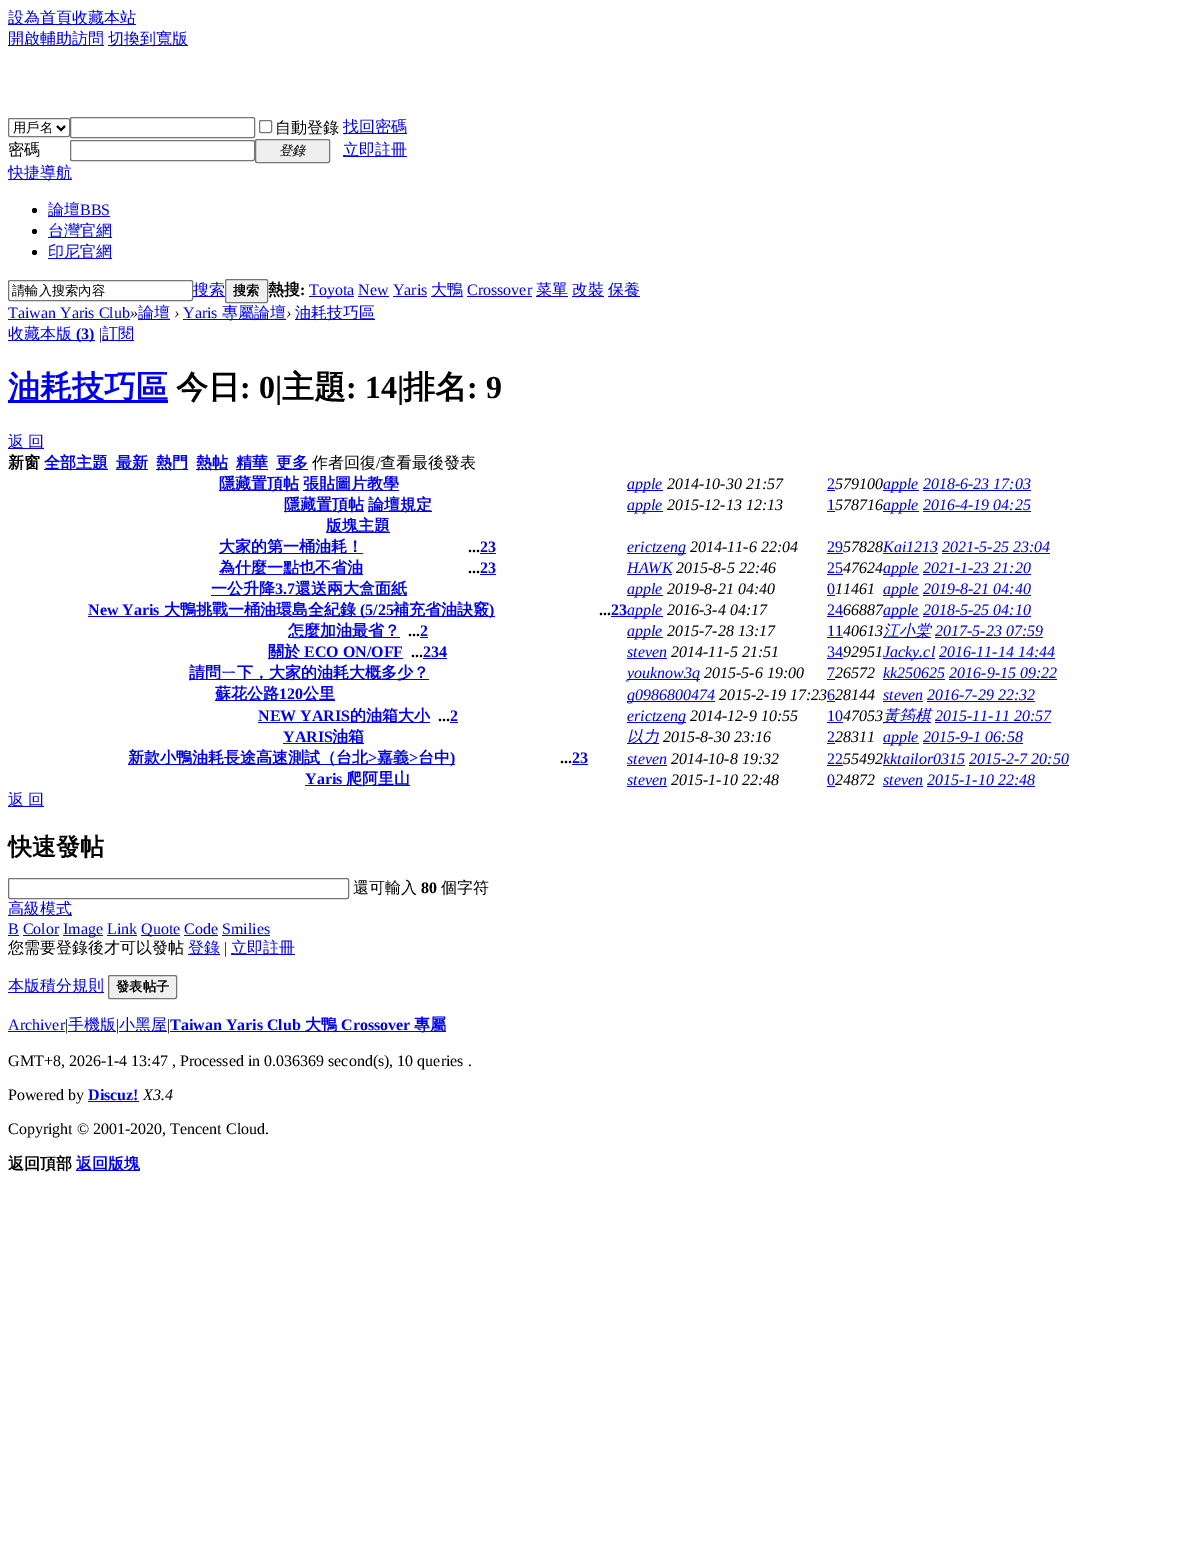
%!PS-Adobe-3.0
%%BoundingBox: 0 0 1179 1552
%%LanguageLevel: 3
%%Pages: 1
%%EndComments
%%BeginProlog
/rrect { 5 dict begin { /r /h /w /y /x } { exch def } forall
  x r add y moveto x w add y 2 copy h add r arct x w add y h add x 1 index r arct
  x y h add x y r arct x y 2 copy exch w add exch r arct closepath end } def
%%EndProlog
%%BeginSetup
<< /PageSize [1179 1552] >> setpagedevice
%%EndSetup
%%Page: 1 1
0 1552 translate 1 -1 scale
4 setmiterlimit
1 setgray
0 0 1179 1552 rectfill
0 0 0.933 setrgbcolor
8 24 128 1 rectfill
8 45 96 1 rectfill
108 45 80 1 rectfill
0.463 setgray
8.5 118.5 61 18 1.5 rrect stroke
0 setgray
2 setlinewidth
newpath 57 126 moveto 61 130 lineto 65 126 lineto stroke
0.463 setgray
1 setlinewidth
70.5 117.5 184 20 1.5 rrect stroke
259.5 120.5 12 12 1.5 rrect stroke
0 0 0.933 setrgbcolor
343 133 64 1 rectfill
0.463 setgray
70.5 140.5 184 20 1.5 rrect stroke
0.937 setgray
255.5 139.5 74 23 1.5 rrect gsave fill grestore
0.463 setgray
stroke
0 0 0.933 setrgbcolor
343 156 64 1 rectfill
8 179 64 1 rectfill
0 setgray
newpath 34.5 210.5 2.5 0 360 arc closepath fill
0 0 0.933 setrgbcolor
48 216 62 1 rectfill
0 setgray
newpath 34.5 231.5 2.5 0 360 arc closepath fill
0 0 0.933 setrgbcolor
48 237 64 1 rectfill
0 setgray
newpath 34.5 252.5 2.5 0 360 arc closepath fill
0 0 0.933 setrgbcolor
48 258 64 1 rectfill
0.463 setgray
8.5 280.5 184 20 1.5 rrect stroke
0 0 0.933 setrgbcolor
193 296 32 1 rectfill
0.937 setgray
225.5 279.5 42 23 1.5 rrect gsave fill grestore
0.463 setgray
stroke
0 0 0.933 setrgbcolor
309 296 45 1 rectfill
431 296 32 1 rectfill
467 296 65 1 rectfill
536 296 32 1 rectfill
572 296 32 1 rectfill
608 296 32 1 rectfill
358 296 31 1 rectfill
393 296 34 1 rectfill
8 319 122 1 rectfill
138 319 32 1 rectfill
183 319 103 1 rectfill
295 319 80 1 rectfill
8 340 87 1 rectfill
102 340 32 1 rectfill
8 400 160 3 rectfill
8 448 36 1 rectfill
44 469 64 1 rectfill
116 469 32 1 rectfill
156 469 32 1 rectfill
196 469 32 1 rectfill
236 469 32 1 rectfill
276 469 32 1 rectfill
219 490 80 1 rectfill
303 490 96 1 rectfill
627 490 36 1 rectfill
827 490 8 1 rectfill
883 490 36 1 rectfill
923 490 108 1 rectfill
284 511 80 1 rectfill
368 511 64 1 rectfill
627 511 36 1 rectfill
827 511 8 1 rectfill
883 511 36 1 rectfill
923 511 108 1 rectfill
326 532 64 1 rectfill
219 553 144 1 rectfill
480 553 16 1 rectfill
627 553 59 1 rectfill
827 553 16 1 rectfill
883 553 55 1 rectfill
942 553 108 1 rectfill
219 574 144 1 rectfill
480 574 16 1 rectfill
627 574 45 1 rectfill
827 574 16 1 rectfill
883 574 36 1 rectfill
923 574 108 1 rectfill
211 595 196 1 rectfill
627 595 36 1 rectfill
827 595 8 1 rectfill
883 595 36 1 rectfill
923 595 108 1 rectfill
88 616 407 1 rectfill
611 616 52 1 rectfill
827 616 16 1 rectfill
883 616 36 1 rectfill
923 616 108 1 rectfill
288 637 112 1 rectfill
420 637 8 1 rectfill
627 637 36 1 rectfill
827 637 16 1 rectfill
883 637 48 1 rectfill
935 637 108 1 rectfill
268 658 135 1 rectfill
423 658 24 1 rectfill
627 658 40 1 rectfill
827 658 16 1 rectfill
883 658 52 1 rectfill
939 658 116 1 rectfill
189 679 240 1 rectfill
627 679 73 1 rectfill
827 679 8 1 rectfill
883 679 62 1 rectfill
949 679 108 1 rectfill
215 700 120 1 rectfill
627 701 88 1 rectfill
827 701 8 1 rectfill
883 701 40 1 rectfill
927 701 108 1 rectfill
258 722 172 1 rectfill
450 722 8 1 rectfill
627 722 59 1 rectfill
827 722 16 1 rectfill
883 722 48 1 rectfill
935 722 116 1 rectfill
283 743 81 1 rectfill
627 743 32 1 rectfill
827 743 8 1 rectfill
883 743 36 1 rectfill
923 743 100 1 rectfill
128 764 327 1 rectfill
572 764 16 1 rectfill
627 765 40 1 rectfill
827 765 16 1 rectfill
883 765 82 1 rectfill
969 765 100 1 rectfill
305 785 105 1 rectfill
627 786 40 1 rectfill
827 786 8 1 rectfill
883 786 40 1 rectfill
927 786 108 1 rectfill
8 806 36 1 rectfill
0.463 setgray
8.5 878.5 340 20 1.5 rrect stroke
0 0 0.933 setrgbcolor
8 915 64 1 rectfill
8 935 11 1 rectfill
63 935 40 1 rectfill
141 935 39 1 rectfill
23 935 36 1 rectfill
107 935 30 1 rectfill
184 935 34 1 rectfill
222 935 48 1 rectfill
188 954 32 1 rectfill
231 954 64 1 rectfill
8 992 96 1 rectfill
0.937 setgray
108.5 975.5 68 23 1.5 rrect gsave fill grestore
0.463 setgray
stroke
0 0 0.933 setrgbcolor
8 1031 57 1 rectfill
68 1031 48 1 rectfill
119 1031 48 1 rectfill
170 1031 276 1 rectfill
88 1101 51 1 rectfill
76 1170 64 1 rectfill
/WenQuanYiZenHei-Medium [16 0 0 -16 0 0] selectfont
8 23 moveto (設為首頁收藏本站) show
8 44 moveto (開啟輔助訪問) show
108 44 moveto (切換到寬版) show
/WenQuanYiZenHei-Medium [13.25 0 0 -13.25 0 0] selectfont
0 setgray
13 132 moveto (用戶名) show
/WenQuanYiZenHei-Medium [16 0 0 -16 0 0] selectfont
275 133 moveto (自動登錄) show
0 0 0.933 setrgbcolor
343 132 moveto (找回密碼) show
0 setgray
8 155 moveto (密碼) show
/WenQuanYiZenHei-MediumItalic [13.25 0 0 -13.25 0 0] selectfont
279 155 moveto (登錄) show
/WenQuanYiZenHei-Medium [16 0 0 -16 0 0] selectfont
0 0 0.933 setrgbcolor
343 155 moveto (立即註冊) show
8 178 moveto (快捷導航) show
48 215 moveto (論壇) show
/LiberationSerif-Regular [16 0 0 -16 0 0] selectfont
80 215 moveto (BBS) show
/WenQuanYiZenHei-Medium [16 0 0 -16 0 0] selectfont
48 236 moveto (台灣官網) show
48 257 moveto (印尼官網) show
/WenQuanYiZenHei-Medium [13.25 0 0 -13.25 0 0] selectfont
0 setgray
12 295 moveto (請輸入搜索內容) show
/WenQuanYiZenHei-Medium [16 0 0 -16 0 0] selectfont
0 0 0.933 setrgbcolor
193 295 moveto (搜索) show
/WenQuanYiZenHei-Bold [13.25 0 0 -13.25 0 0] selectfont
0 setgray
233 295 moveto (搜索) show
/WenQuanYiZenHei-Bold [16 0 0 -16 0 0] selectfont
268 295 moveto (熱搜) show
/LiberationSerif-Bold [16 0 0 -16 0 0] selectfont
300 295 moveto (:) show
/LiberationSerif-Regular [16 0 0 -16 0 0] selectfont
0 0 0.933 setrgbcolor
309 295 moveto (Toyota New Yaris) show
/WenQuanYiZenHei-Medium [16 0 0 -16 0 0] selectfont
431 295 moveto (大鴨) show
/LiberationSerif-Regular [16 0 0 -16 0 0] selectfont
467 295 moveto (Crossover) show
/WenQuanYiZenHei-Medium [16 0 0 -16 0 0] selectfont
536 295 moveto (菜單) show
572 295 moveto (改裝) show
608 295 moveto (保養) show
/LiberationSerif-Regular [16 0 0 -16 0 0] selectfont
8 318 moveto (Taiwan Yaris Club) show
/LiberationSerif-Italic [16 0 0 -16 0 0] selectfont
0 setgray
130 318 moveto (») show
/WenQuanYiZenHei-Medium [16 0 0 -16 0 0] selectfont
0 0 0.933 setrgbcolor
138 318 moveto (論壇) show
/LiberationSerif-Italic [16 0 0 -16 0 0] selectfont
0 setgray
174 318 moveto (›) show
/LiberationSerif-Regular [16 0 0 -16 0 0] selectfont
0 0 0.933 setrgbcolor
183 318 moveto (Yaris) show
/WenQuanYiZenHei-Medium [16 0 0 -16 0 0] selectfont
222 318 moveto (專屬論壇) show
/LiberationSerif-Italic [16 0 0 -16 0 0] selectfont
0 setgray
286 318 moveto (›) show
/WenQuanYiZenHei-Medium [16 0 0 -16 0 0] selectfont
0 0 0.933 setrgbcolor
295 318 moveto (油耗技巧區) show
8 339 moveto (收藏本版) show
/LiberationSerif-Bold [16 0 0 -16 0 0] selectfont
76 339 moveto (\(3\)) show
/LiberationSerif-Regular [16 0 0 -16 0 0] selectfont
0 setgray
99 339 moveto (|) show
/WenQuanYiZenHei-Medium [16 0 0 -16 0 0] selectfont
0 0 0.933 setrgbcolor
102 339 moveto (訂閱) show
/WenQuanYiZenHei-Bold [32 0 0 -32 0 0] selectfont
8 398 moveto (油耗技巧區) show
0 setgray
176 398 moveto (今日) show
/LiberationSerif-Bold [32 0 0 -32 0 0] selectfont
240 398 moveto (: 0|) show
/WenQuanYiZenHei-Bold [32 0 0 -32 0 0] selectfont
282 398 moveto (主題) show
/LiberationSerif-Bold [32 0 0 -32 0 0] selectfont
346 398 moveto (: 14|) show
/WenQuanYiZenHei-Bold [32 0 0 -32 0 0] selectfont
403 398 moveto (排名) show
/LiberationSerif-Bold [32 0 0 -32 0 0] selectfont
467 398 moveto (: 9) show
/WenQuanYiZenHei-Medium [16 0 0 -16 0 0] selectfont
0 0 0.933 setrgbcolor
8 447 moveto (返) show
28 447 moveto (回) show
/WenQuanYiZenHei-Bold [16 0 0 -16 0 0] selectfont
0 setgray
8 468 moveto (新窗) show
0 0 0.933 setrgbcolor
44 468 moveto (全部主題) show
116 468 moveto (最新) show
156 468 moveto (熱門) show
196 468 moveto (熱帖) show
236 468 moveto (精華) show
276 468 moveto (更多) show
/WenQuanYiZenHei-Medium [16 0 0 -16 0 0] selectfont
0 setgray
312 468 moveto (作者回復) show
/LiberationSerif-Regular [16 0 0 -16 0 0] selectfont
376 468 moveto (/) show
/WenQuanYiZenHei-Medium [16 0 0 -16 0 0] selectfont
380 468 moveto (查看最後發表) show
/WenQuanYiZenHei-Bold [16 0 0 -16 0 0] selectfont
0 0 0.933 setrgbcolor
219 489 moveto (隱藏置頂帖) show
303 489 moveto (張貼圖片教學) show
/LiberationSerif-Italic [16 0 0 -16 0 0] selectfont
627 489 moveto (apple) show
0 setgray
667 489 moveto (2014-10-30 21:57) show
/LiberationSerif-Regular [16 0 0 -16 0 0] selectfont
0 0 0.933 setrgbcolor
827 489 moveto (2) show
/LiberationSerif-Italic [16 0 0 -16 0 0] selectfont
0 setgray
835 489 moveto (579100) show
0 0 0.933 setrgbcolor
883 489 moveto (apple 2018-6-23 17:03) show
/WenQuanYiZenHei-Bold [16 0 0 -16 0 0] selectfont
284 510 moveto (隱藏置頂帖) show
368 510 moveto (論壇規定) show
/LiberationSerif-Italic [16 0 0 -16 0 0] selectfont
627 510 moveto (apple) show
0 setgray
667 510 moveto (2015-12-13 12:13) show
/LiberationSerif-Regular [16 0 0 -16 0 0] selectfont
0 0 0.933 setrgbcolor
827 510 moveto (1) show
/LiberationSerif-Italic [16 0 0 -16 0 0] selectfont
0 setgray
835 510 moveto (578716) show
0 0 0.933 setrgbcolor
883 510 moveto (apple 2016-4-19 04:25) show
/WenQuanYiZenHei-Bold [16 0 0 -16 0 0] selectfont
326 531 moveto (版塊主題) show
219 552 moveto (大家的第一桶油耗！) show
/LiberationSerif-Bold [16 0 0 -16 0 0] selectfont
0 setgray
468 552 moveto (...) show
0 0 0.933 setrgbcolor
480 552 moveto (23) show
/LiberationSerif-Italic [16 0 0 -16 0 0] selectfont
627 552 moveto (erictzeng) show
0 setgray
690 552 moveto (2014-11-6 22:04) show
/LiberationSerif-Regular [16 0 0 -16 0 0] selectfont
0 0 0.933 setrgbcolor
827 552 moveto (29) show
/LiberationSerif-Italic [16 0 0 -16 0 0] selectfont
0 setgray
843 552 moveto (57828) show
0 0 0.933 setrgbcolor
883 552 moveto (Kai1213 2021-5-25 23:04) show
/WenQuanYiZenHei-Bold [16 0 0 -16 0 0] selectfont
219 573 moveto (為什麼一點也不省油) show
/LiberationSerif-Bold [16 0 0 -16 0 0] selectfont
0 setgray
468 573 moveto (...) show
0 0 0.933 setrgbcolor
480 573 moveto (23) show
/LiberationSerif-Italic [16 0 0 -16 0 0] selectfont
627 573 moveto (HAWK) show
0 setgray
676 573 moveto (2015-8-5 22:46) show
/LiberationSerif-Regular [16 0 0 -16 0 0] selectfont
0 0 0.933 setrgbcolor
827 573 moveto (25) show
/LiberationSerif-Italic [16 0 0 -16 0 0] selectfont
0 setgray
843 573 moveto (47624) show
0 0 0.933 setrgbcolor
883 573 moveto (apple 2021-1-23 21:20) show
/WenQuanYiZenHei-Bold [16 0 0 -16 0 0] selectfont
211 594 moveto (一公升降) show
/LiberationSerif-Bold [16 0 0 -16 0 0] selectfont
275 594 moveto (3.7) show
/WenQuanYiZenHei-Bold [16 0 0 -16 0 0] selectfont
295 594 moveto (還送兩大盒面紙) show
/LiberationSerif-Italic [16 0 0 -16 0 0] selectfont
627 594 moveto (apple) show
0 setgray
667 594 moveto (2019-8-21 04:40) show
/LiberationSerif-Regular [16 0 0 -16 0 0] selectfont
0 0 0.933 setrgbcolor
827 594 moveto (0) show
/LiberationSerif-Italic [16 0 0 -16 0 0] selectfont
0 setgray
835 594 moveto (11461) show
0 0 0.933 setrgbcolor
883 594 moveto (apple 2019-8-21 04:40) show
/LiberationSerif-Bold [16 0 0 -16 0 0] selectfont
88 615 moveto (New Yaris) show
/WenQuanYiZenHei-Bold [16 0 0 -16 0 0] selectfont
164 615 moveto (大鴨挑戰一桶油環島全紀錄) show
/LiberationSerif-Bold [16 0 0 -16 0 0] selectfont
360 615 moveto (\(5/25) show
/WenQuanYiZenHei-Bold [16 0 0 -16 0 0] selectfont
393 615 moveto (補充省油訣竅) show
/LiberationSerif-Bold [16 0 0 -16 0 0] selectfont
489 615 moveto (\)) show
0 setgray
599 615 moveto (...) show
0 0 0.933 setrgbcolor
611 615 moveto (23) show
/LiberationSerif-Italic [16 0 0 -16 0 0] selectfont
627 615 moveto (apple) show
0 setgray
667 615 moveto (2016-3-4 04:17) show
/LiberationSerif-Regular [16 0 0 -16 0 0] selectfont
0 0 0.933 setrgbcolor
827 615 moveto (24) show
/LiberationSerif-Italic [16 0 0 -16 0 0] selectfont
0 setgray
843 615 moveto (66887) show
0 0 0.933 setrgbcolor
883 615 moveto (apple 2018-5-25 04:10) show
/WenQuanYiZenHei-Bold [16 0 0 -16 0 0] selectfont
288 636 moveto (怎麼加油最省？) show
/LiberationSerif-Bold [16 0 0 -16 0 0] selectfont
0 setgray
408 636 moveto (...) show
0 0 0.933 setrgbcolor
420 636 moveto (2) show
/LiberationSerif-Italic [16 0 0 -16 0 0] selectfont
627 636 moveto (apple) show
0 setgray
667 636 moveto (2015-7-28 13:17) show
/LiberationSerif-Regular [16 0 0 -16 0 0] selectfont
0 0 0.933 setrgbcolor
827 636 moveto (11) show
/LiberationSerif-Italic [16 0 0 -16 0 0] selectfont
0 setgray
843 636 moveto (40613) show
/WenQuanYiZenHei-MediumItalic [16 0 0 -16 0 0] selectfont
0 0 0.933 setrgbcolor
883 636 moveto (江小棠) show
/LiberationSerif-Italic [16 0 0 -16 0 0] selectfont
935 636 moveto (2017-5-23 07:59) show
/WenQuanYiZenHei-Bold [16 0 0 -16 0 0] selectfont
268 657 moveto (關於) show
/LiberationSerif-Bold [16 0 0 -16 0 0] selectfont
304 657 moveto (ECO ON/OFF) show
0 setgray
411 657 moveto (...) show
0 0 0.933 setrgbcolor
423 657 moveto (234) show
/LiberationSerif-Italic [16 0 0 -16 0 0] selectfont
627 657 moveto (steven) show
0 setgray
671 657 moveto (2014-11-5 21:51) show
/LiberationSerif-Regular [16 0 0 -16 0 0] selectfont
0 0 0.933 setrgbcolor
827 657 moveto (34) show
/LiberationSerif-Italic [16 0 0 -16 0 0] selectfont
0 setgray
843 657 moveto (92951) show
0 0 0.933 setrgbcolor
883 657 moveto (Jacky.cl 2016-11-14 14:44) show
/WenQuanYiZenHei-Bold [16 0 0 -16 0 0] selectfont
189 678 moveto (請問ㄧ下，大家的油耗大概多少？) show
/LiberationSerif-Italic [16 0 0 -16 0 0] selectfont
627 678 moveto (youknow3q) show
0 setgray
704 678 moveto (2015-5-6 19:00) show
/LiberationSerif-Regular [16 0 0 -16 0 0] selectfont
0 0 0.933 setrgbcolor
827 678 moveto (7) show
/LiberationSerif-Italic [16 0 0 -16 0 0] selectfont
0 setgray
835 678 moveto (26572) show
0 0 0.933 setrgbcolor
883 678 moveto (kk250625 2016-9-15 09:22) show
/WenQuanYiZenHei-Bold [16 0 0 -16 0 0] selectfont
215 699 moveto (蘇花公路) show
/LiberationSerif-Bold [16 0 0 -16 0 0] selectfont
279 699 moveto (120) show
/WenQuanYiZenHei-Bold [16 0 0 -16 0 0] selectfont
303 699 moveto (公里) show
/LiberationSerif-Italic [16 0 0 -16 0 0] selectfont
627 700 moveto (g0986800474) show
0 setgray
719 700 moveto (2015-2-19 17:23) show
/LiberationSerif-Regular [16 0 0 -16 0 0] selectfont
0 0 0.933 setrgbcolor
827 700 moveto (6) show
/LiberationSerif-Italic [16 0 0 -16 0 0] selectfont
0 setgray
835 700 moveto (28144) show
0 0 0.933 setrgbcolor
883 700 moveto (steven 2016-7-29 22:32) show
/LiberationSerif-Bold [16 0 0 -16 0 0] selectfont
258 721 moveto (NEW YARIS) show
/WenQuanYiZenHei-Bold [16 0 0 -16 0 0] selectfont
350 721 moveto (的油箱大小) show
/LiberationSerif-Bold [16 0 0 -16 0 0] selectfont
0 setgray
438 721 moveto (...) show
0 0 0.933 setrgbcolor
450 721 moveto (2) show
/LiberationSerif-Italic [16 0 0 -16 0 0] selectfont
627 721 moveto (erictzeng) show
0 setgray
690 721 moveto (2014-12-9 10:55) show
/LiberationSerif-Regular [16 0 0 -16 0 0] selectfont
0 0 0.933 setrgbcolor
827 721 moveto (10) show
/LiberationSerif-Italic [16 0 0 -16 0 0] selectfont
0 setgray
843 721 moveto (47053) show
/WenQuanYiZenHei-MediumItalic [16 0 0 -16 0 0] selectfont
0 0 0.933 setrgbcolor
883 721 moveto (黃筠棋) show
/LiberationSerif-Italic [16 0 0 -16 0 0] selectfont
935 721 moveto (2015-11-11 20:57) show
/LiberationSerif-Bold [16 0 0 -16 0 0] selectfont
283 742 moveto (YARIS) show
/WenQuanYiZenHei-Bold [16 0 0 -16 0 0] selectfont
332 742 moveto (油箱) show
/WenQuanYiZenHei-MediumItalic [16 0 0 -16 0 0] selectfont
627 742 moveto (以力) show
/LiberationSerif-Italic [16 0 0 -16 0 0] selectfont
0 setgray
663 742 moveto (2015-8-30 23:16) show
/LiberationSerif-Regular [16 0 0 -16 0 0] selectfont
0 0 0.933 setrgbcolor
827 742 moveto (2) show
/LiberationSerif-Italic [16 0 0 -16 0 0] selectfont
0 setgray
835 742 moveto (28311) show
0 0 0.933 setrgbcolor
883 742 moveto (apple 2015-9-1 06:58) show
/WenQuanYiZenHei-Bold [16 0 0 -16 0 0] selectfont
128 763 moveto (新款小鴨油耗長途高速測試（台北) show
/LiberationSerif-Bold [16 0 0 -16 0 0] selectfont
368 763 moveto (>) show
/WenQuanYiZenHei-Bold [16 0 0 -16 0 0] selectfont
377 763 moveto (嘉義) show
/LiberationSerif-Bold [16 0 0 -16 0 0] selectfont
409 763 moveto (>) show
/WenQuanYiZenHei-Bold [16 0 0 -16 0 0] selectfont
418 763 moveto (台中) show
/LiberationSerif-Bold [16 0 0 -16 0 0] selectfont
450 763 moveto (\)) show
0 setgray
560 763 moveto (...) show
0 0 0.933 setrgbcolor
572 763 moveto (23) show
/LiberationSerif-Italic [16 0 0 -16 0 0] selectfont
627 764 moveto (steven) show
0 setgray
671 764 moveto (2014-10-8 19:32) show
/LiberationSerif-Regular [16 0 0 -16 0 0] selectfont
0 0 0.933 setrgbcolor
827 764 moveto (22) show
/LiberationSerif-Italic [16 0 0 -16 0 0] selectfont
0 setgray
843 764 moveto (55492) show
0 0 0.933 setrgbcolor
883 764 moveto (kktailor0315 2015-2-7 20:50) show
/LiberationSerif-Bold [16 0 0 -16 0 0] selectfont
305 784 moveto (Yaris) show
/WenQuanYiZenHei-Bold [16 0 0 -16 0 0] selectfont
346 784 moveto (爬阿里山) show
/LiberationSerif-Italic [16 0 0 -16 0 0] selectfont
627 785 moveto (steven) show
0 setgray
671 785 moveto (2015-1-10 22:48) show
/LiberationSerif-Regular [16 0 0 -16 0 0] selectfont
0 0 0.933 setrgbcolor
827 785 moveto (0) show
/LiberationSerif-Italic [16 0 0 -16 0 0] selectfont
0 setgray
835 785 moveto (24872) show
0 0 0.933 setrgbcolor
883 785 moveto (steven 2015-1-10 22:48) show
/WenQuanYiZenHei-Medium [16 0 0 -16 0 0] selectfont
8 805 moveto (返) show
28 805 moveto (回) show
/WenQuanYiZenHei-Bold [24 0 0 -24 0 0] selectfont
0 setgray
8 855 moveto (快速發帖) show
/WenQuanYiZenHei-Medium [16 0 0 -16 0 0] selectfont
353 893 moveto (還可輸入) show
/LiberationSerif-Bold [16 0 0 -16 0 0] selectfont
421 893 moveto (80) show
/WenQuanYiZenHei-Medium [16 0 0 -16 0 0] selectfont
441 893 moveto (個字符) show
0 0 0.933 setrgbcolor
8 914 moveto (高級模式) show
/LiberationSerif-Regular [16 0 0 -16 0 0] selectfont
8 934 moveto (B Color) show
63 934 moveto (Image Link) show
141 934 moveto (Quote Code Smilies) show
/WenQuanYiZenHei-Medium [16 0 0 -16 0 0] selectfont
0 setgray
8 953 moveto (您需要登錄後才可以發帖) show
0 0 0.933 setrgbcolor
188 953 moveto (登錄) show
/LiberationSerif-Regular [16 0 0 -16 0 0] selectfont
0 setgray
224 953 moveto (|) show
/WenQuanYiZenHei-Medium [16 0 0 -16 0 0] selectfont
0 0 0.933 setrgbcolor
231 953 moveto (立即註冊) show
8 991 moveto (本版積分規則) show
/WenQuanYiZenHei-Bold [13.25 0 0 -13.25 0 0] selectfont
0 setgray
116 991 moveto (發表帖子) show
/LiberationSerif-Regular [16 0 0 -16 0 0] selectfont
0 0 0.933 setrgbcolor
8 1030 moveto (Archiver) show
0 setgray
65 1030 moveto (|) show
/WenQuanYiZenHei-Medium [16 0 0 -16 0 0] selectfont
0 0 0.933 setrgbcolor
68 1030 moveto (手機版) show
/LiberationSerif-Regular [16 0 0 -16 0 0] selectfont
0 setgray
116 1030 moveto (|) show
/WenQuanYiZenHei-Medium [16 0 0 -16 0 0] selectfont
0 0 0.933 setrgbcolor
119 1030 moveto (小黑屋) show
/LiberationSerif-Regular [16 0 0 -16 0 0] selectfont
0 setgray
167 1030 moveto (|) show
/LiberationSerif-Bold [16 0 0 -16 0 0] selectfont
0 0 0.933 setrgbcolor
170 1030 moveto (Taiwan Yaris Club) show
/WenQuanYiZenHei-Bold [16 0 0 -16 0 0] selectfont
305 1030 moveto (大鴨) show
/LiberationSerif-Bold [16 0 0 -16 0 0] selectfont
341 1030 moveto (Crossover) show
/WenQuanYiZenHei-Bold [16 0 0 -16 0 0] selectfont
414 1030 moveto (專屬) show
/LiberationSerif-Regular [16 0 0 -16 0 0] selectfont
0 setgray
8 1066 moveto (GMT+8, 2026-1-4 13:47 , Processed in 0.036369 second\(s\), 10 queries .) show
8 1100 moveto (Powered by) show
/LiberationSerif-Bold [16 0 0 -16 0 0] selectfont
0 0 0.933 setrgbcolor
88 1100 moveto (Discuz!) show
/LiberationSerif-Italic [16 0 0 -16 0 0] selectfont
0 setgray
143 1100 moveto (X3.4) show
/LiberationSerif-Regular [16 0 0 -16 0 0] selectfont
8 1134 moveto (Copyright © 2001-2020, Tencent Cloud.) show
/WenQuanYiZenHei-Bold [16 0 0 -16 0 0] selectfont
8 1169 moveto (返回頂部) show
0 0 0.933 setrgbcolor
76 1169 moveto (返回版塊) show
showpage
%%EOF
